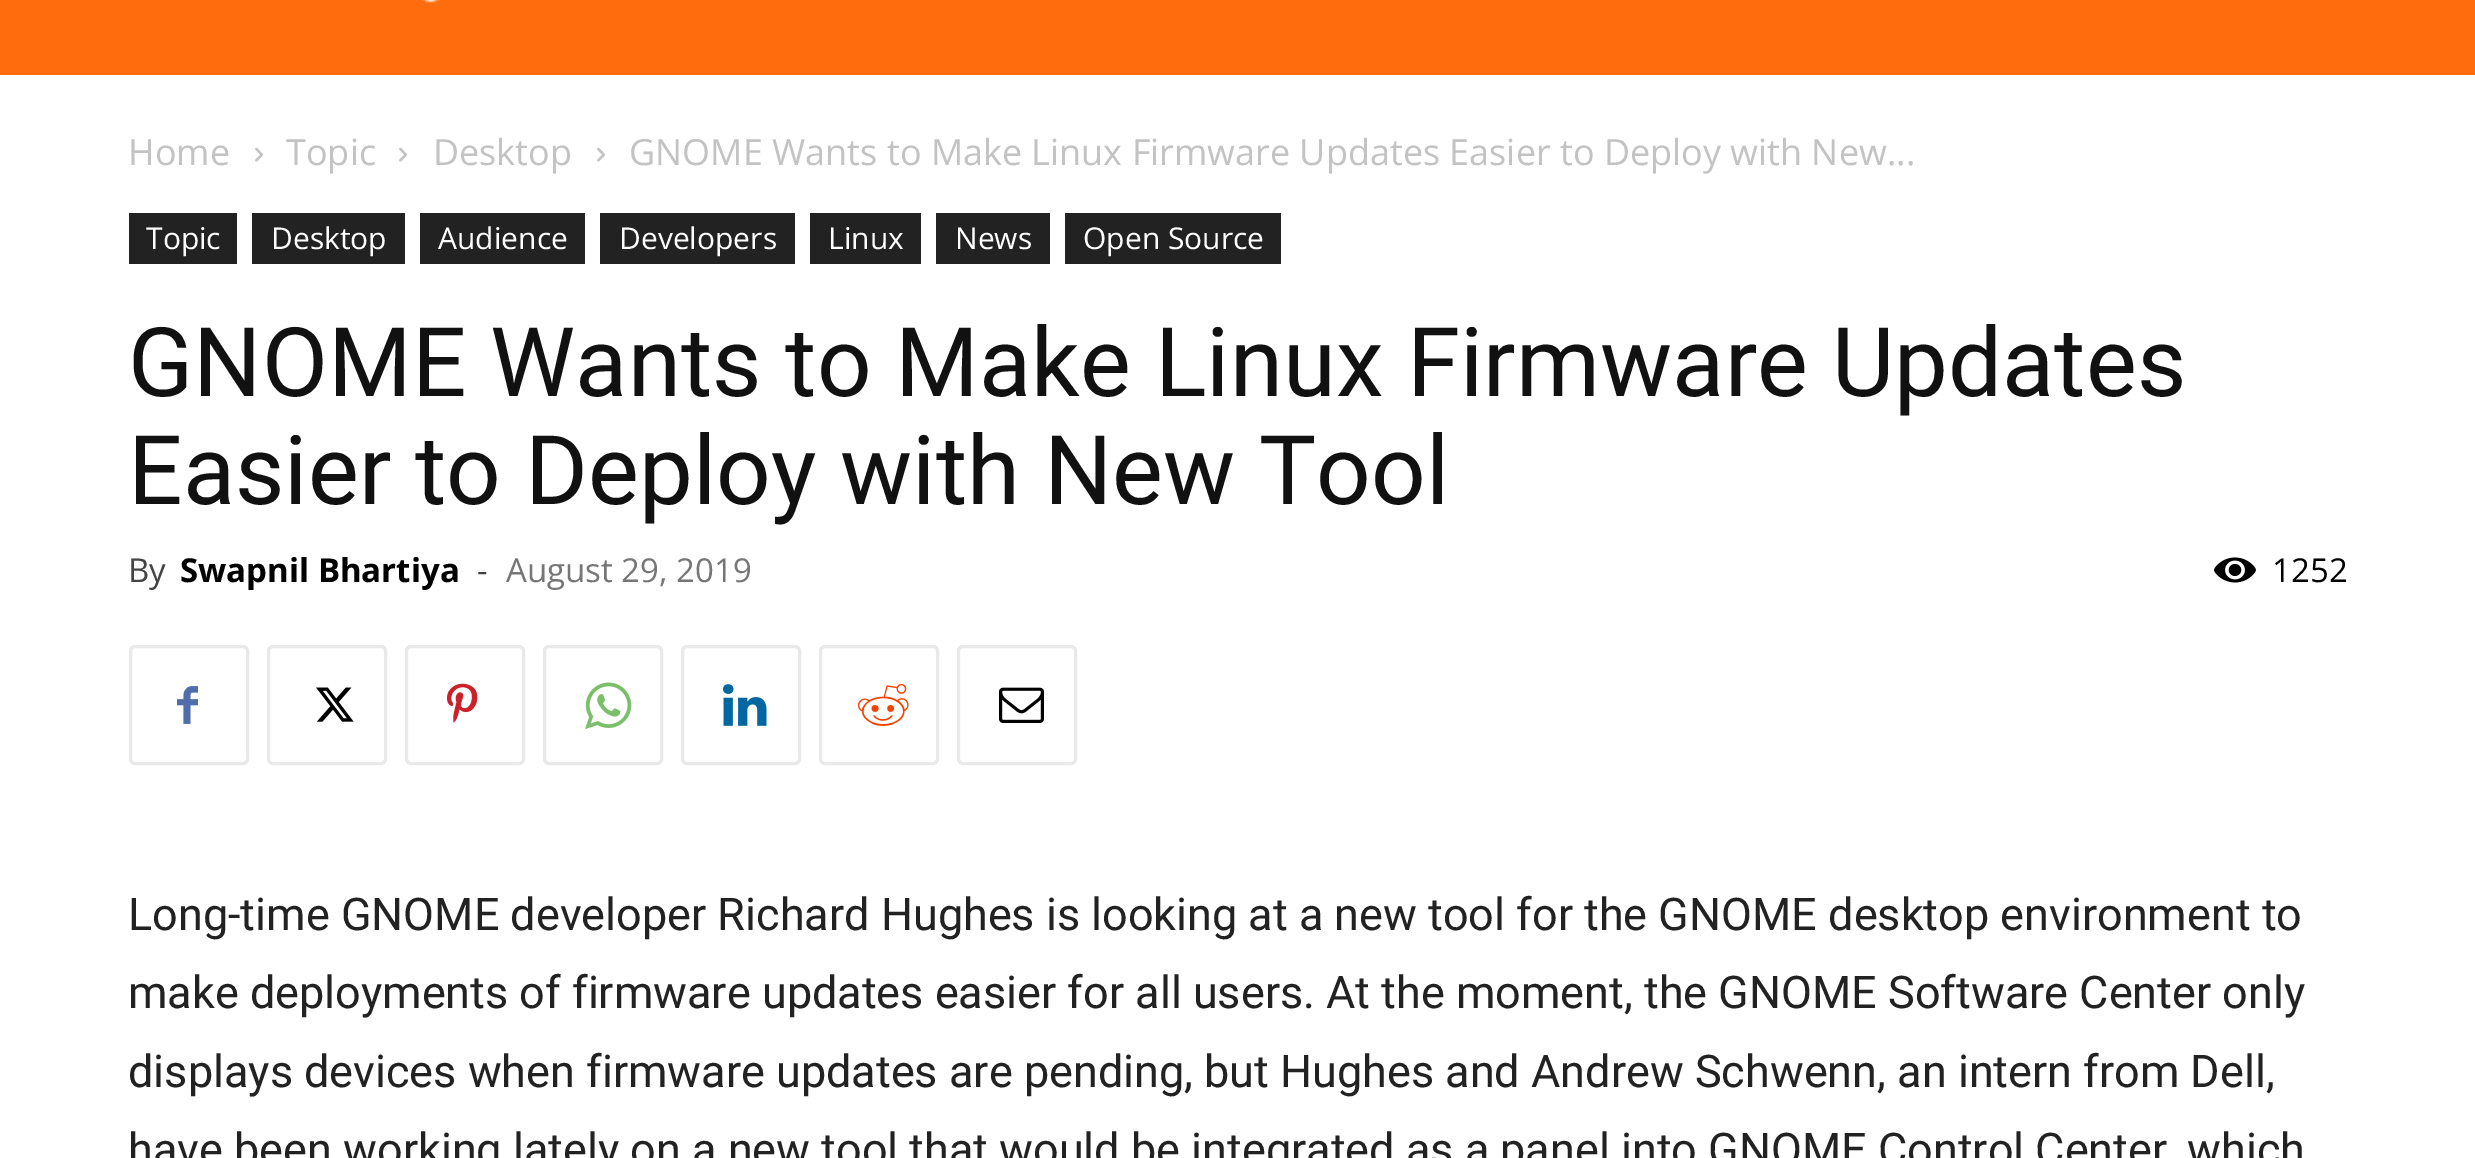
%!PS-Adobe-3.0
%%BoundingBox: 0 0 2475 1158
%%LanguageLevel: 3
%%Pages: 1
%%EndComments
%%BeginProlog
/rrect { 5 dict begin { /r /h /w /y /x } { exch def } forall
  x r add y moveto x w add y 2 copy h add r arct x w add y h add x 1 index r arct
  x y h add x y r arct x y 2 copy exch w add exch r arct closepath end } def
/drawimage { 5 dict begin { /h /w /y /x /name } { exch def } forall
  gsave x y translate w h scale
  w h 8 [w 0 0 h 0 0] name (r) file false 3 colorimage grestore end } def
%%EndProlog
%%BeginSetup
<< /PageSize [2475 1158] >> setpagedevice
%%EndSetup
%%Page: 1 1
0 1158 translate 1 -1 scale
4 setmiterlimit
1 setgray
0 0 2475 1158 rectfill
1 0.424 0.055 setrgbcolor
0 0 2475 75 rectfill
(images/1.raw) 421 0 19 3 drawimage
(images/2.raw) 255 147 9 15 drawimage
(images/2.raw) 399 147 9 15 drawimage
(images/2.raw) 597 147 9 15 drawimage
0.133 setgray
129 213 108 51 rectfill
252 213 153 51 rectfill
420 213 165 51 rectfill
600 213 195 51 rectfill
810 213 111 51 rectfill
936 213 114 51 rectfill
1065 213 216 51 rectfill
(images/3.raw) 2214 557 42 26 drawimage
0.914 setgray
3 setlinewidth
130.5 646.5 117 117 4.5 rrect stroke
(images/4.raw) 177 686 21 38 drawimage
268.5 646.5 117 117 4.5 rrect stroke
(images/5.raw) 316 687 38 35 drawimage
406.5 646.5 117 117 4.5 rrect stroke
(images/6.raw) 447 683 31 40 drawimage
544.5 646.5 117 117 4.5 rrect stroke
(images/7.raw) 585 682 47 48 drawimage
682.5 646.5 117 117 4.5 rrect stroke
(images/8.raw) 723 684 44 42 drawimage
820.5 646.5 117 117 4.5 rrect stroke
(images/9.raw) 858 684 51 42 drawimage
958.5 646.5 117 117 4.5 rrect stroke
(images/10.raw) 999 687 45 36 drawimage
/OpenSans-Regular [36 0 0 -36 0 0] selectfont
0.765 setgray
128 165 moveto (Home) show
286 165 moveto (Topic) show
433 165 moveto (Desktop) show
629 165 moveto (GNOME Wants to Make Linux Firmware Updates Easier to Deploy with New...) show
/OpenSans-Regular [30 0 0 -30 0 0] selectfont
1 setgray
146 249 moveto (Topic) show
271 249 moveto (Desktop) show
438 249 moveto (Audience) show
619 249 moveto (Developers) show
828 249 moveto (Linux) show
955 249 moveto (News) show
1083 249 moveto (Open Source) show
/Roboto-Regular [96 0 0 -96 0 0] selectfont
0.067 setgray
128 396 moveto (GNOME Wants to Make Linux Firmware Updates) show
128 504 moveto (Easier to Deploy with New Tool) show
/OpenSans-Regular [33 0 0 -33 0 0] selectfont
0.267 setgray
128 582 moveto (By) show
/OpenSans-Bold [33 0 0 -33 0 0] selectfont
0 setgray
180 582 moveto (Swapnil Bhartiya) show
/OpenSans-Regular [33 0 0 -33 0 0] selectfont
0.267 setgray
477 582 moveto (-) show
0.463 setgray
506 582 moveto (August 29, 2019) show
0 setgray
2272 582 moveto (1252) show
/Roboto-Regular [45 0 0 -45 0 0] selectfont
0.133 setgray
128 930 moveto (Long-time GNOME developer Richard Hughes is looking at a new tool for the GNOME desktop environment to) show
128 1008 moveto (make deployments of firmware updates easier for all users. At the moment, the GNOME Software Center only) show
128 1087 moveto (displays devices when firmware updates are pending, but Hughes and Andrew Schwenn, an intern from Dell,) show
128 1165 moveto (have been working lately on a new tool that would be integrated as a panel into GNOME Control Center, which) show
showpage
%%EOF
